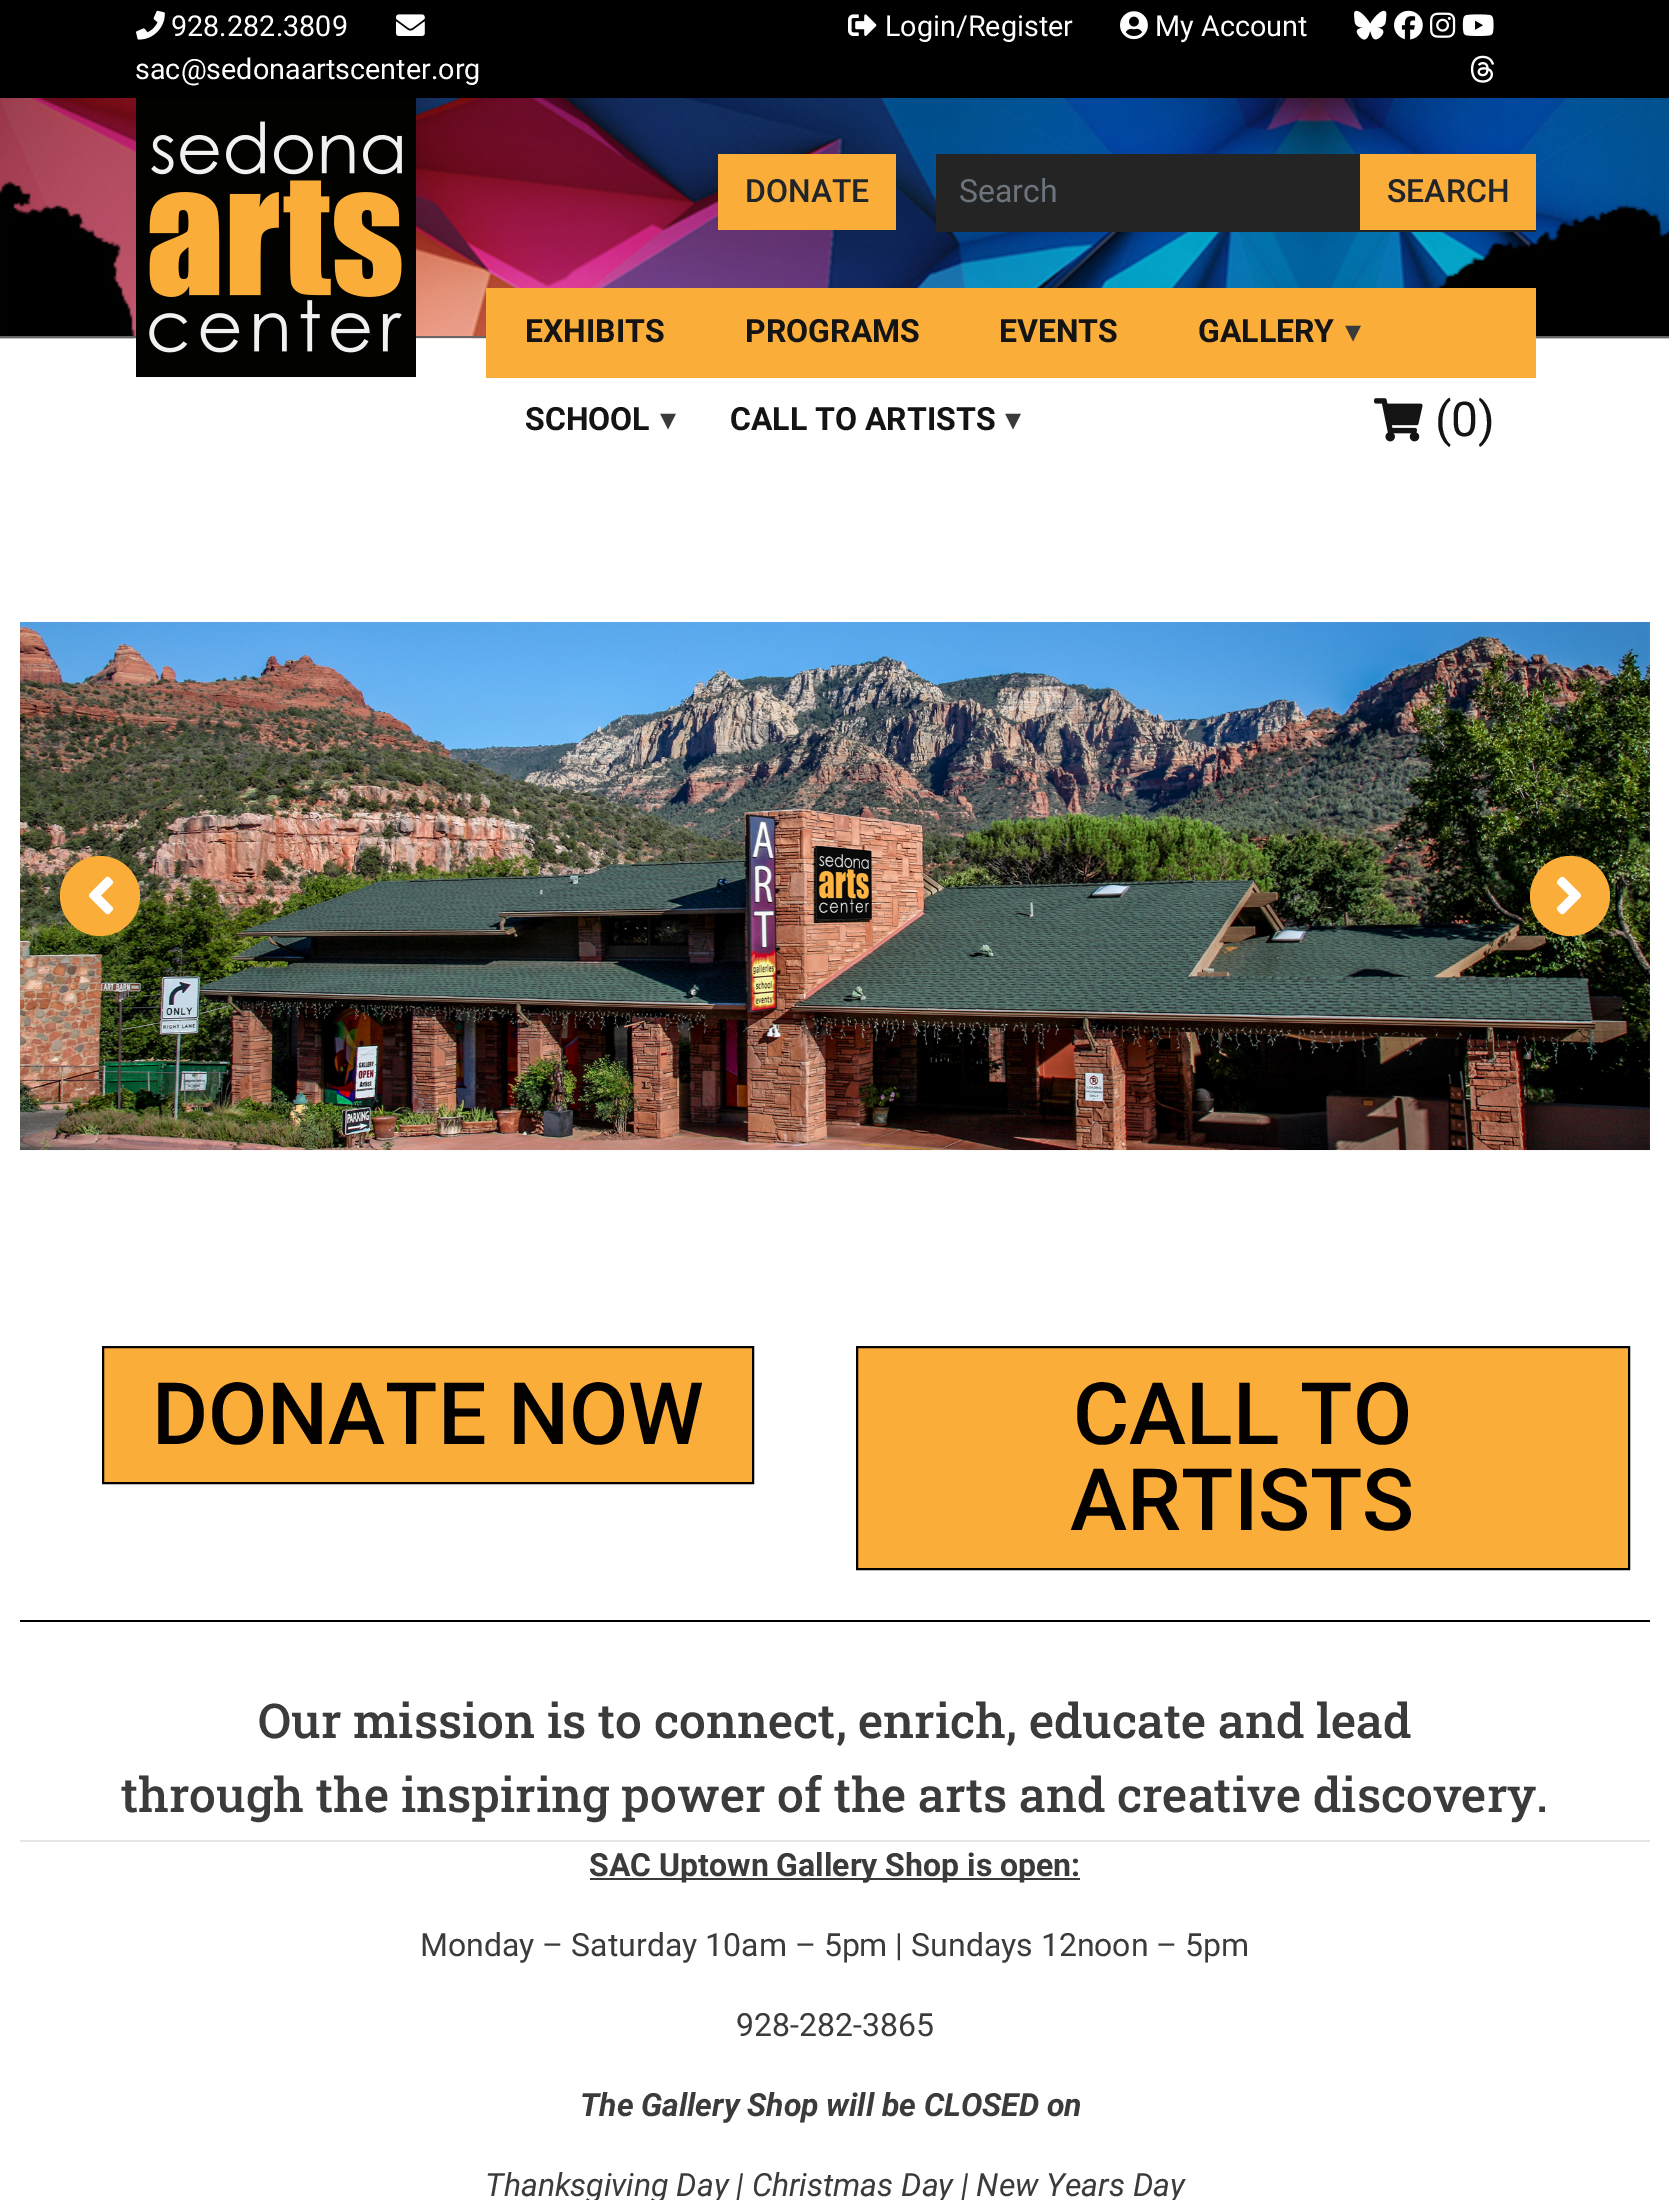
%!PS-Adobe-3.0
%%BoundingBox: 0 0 1669 2200
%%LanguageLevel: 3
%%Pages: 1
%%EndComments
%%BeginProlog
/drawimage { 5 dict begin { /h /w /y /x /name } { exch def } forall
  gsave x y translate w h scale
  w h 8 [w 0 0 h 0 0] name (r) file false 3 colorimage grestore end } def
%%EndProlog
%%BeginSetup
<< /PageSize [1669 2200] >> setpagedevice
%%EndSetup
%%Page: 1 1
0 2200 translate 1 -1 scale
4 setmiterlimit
1 setgray
0 0 1669 2200 rectfill
0 setgray
0 0 1669 98 rectfill
(images/1.raw) 136 10 29 30 drawimage
(images/2.raw) 396 14 29 22 drawimage
(images/3.raw) 848 14 29 22 drawimage
(images/4.raw) 1120 11 28 29 drawimage
(images/5.raw) 1354 10 33 30 drawimage
(images/6.raw) 1394 10 29 30 drawimage
(images/7.raw) 1430 12 26 26 drawimage
(images/8.raw) 1462 14 32 22 drawimage
(images/9.raw) 1470 55 25 28 drawimage
(images/10.raw) 0 98 1669 241 drawimage
0.4 setgray
0 336 1669 2 rectfill
(images/11.raw) 136 98 280 279 drawimage
0.984 0.678 0.224 setrgbcolor
718 154 178 76 rectfill
0.141 setgray
936 154 600 78 rectfill
0.984 0.678 0.224 setrgbcolor
1360 154 176 76 rectfill
486 288 1050 90 rectfill
(images/12.raw) 1374 398 49 44 drawimage
(images/13.raw) 20 622 1630 529 drawimage
newpath 100 896 40 0 360 arc closepath fill
(images/14.raw) 88 876 26 39 drawimage
newpath 1570 896 40 0 360 arc closepath fill
(images/15.raw) 1556 876 26 39 drawimage
newpath 103 1347 moveto 753 1347 lineto 753 1483 lineto 103 1483 lineto closepath gsave fill grestore
0.012 0 0 setrgbcolor
2 setlinewidth
stroke
0.984 0.678 0.224 setrgbcolor
newpath 857 1347 moveto 1629 1347 lineto 1629 1569 lineto 857 1569 lineto closepath gsave fill grestore
0.012 0 0 setrgbcolor
stroke
0 setgray
20 1620 1630 2 rectfill
0.902 setgray
20 1840 1630 2 rectfill
0.231 setgray
590 1878 490 2 rectfill
/Roboto-Regular [28.75 0 0 -28.75 0 0] selectfont
1 setgray
171 36 moveto (928.282.3809) show
135 79 moveto (sac@sedonaartscenter.org) show
885 36 moveto (Login/Register) show
1155 36 moveto (My Account) show
/Roboto-Medium [32 0 0 -32 0 0] selectfont
0.129 0.145 0.161 setrgbcolor
745 202 moveto (DONATE) show
/Roboto-Regular [32 0 0 -32 0 0] selectfont
0.424 0.459 0.49 setrgbcolor
959 202 moveto (Search) show
/Roboto-Medium [32 0 0 -32 0 0] selectfont
0.129 0.145 0.161 setrgbcolor
1387 202 moveto (SEARCH) show
/Roboto-Bold [32 0 0 -32 0 0] selectfont
0.078 setgray
525 342 moveto (EXHIBITS) show
745 342 moveto (PROGRAMS) show
999 342 moveto (EVENTS) show
1198 342 moveto (GALLERY) show
/DejaVuSans-Regular [32 0 0 -32 0 0] selectfont
0.231 setgray
1345 342 moveto (▾) show
/Roboto-Bold [32 0 0 -32 0 0] selectfont
0.078 setgray
525 430 moveto (SCHOOL) show
/DejaVuSans-Regular [32 0 0 -32 0 0] selectfont
0.231 setgray
660 430 moveto (▾) show
/Roboto-Bold [32 0 0 -32 0 0] selectfont
0.078 setgray
730 430 moveto (CALL TO ARTISTS) show
/DejaVuSans-Regular [32 0 0 -32 0 0] selectfont
0.231 setgray
1005 430 moveto (▾) show
/Roboto-Regular [48 0 0 -48 0 0] selectfont
0.078 setgray
1435 436 moveto (\(0\)) show
/Roboto-Medium [86 0 0 -86 0 0] selectfont
0.012 0 0 setrgbcolor
152 1444 moveto (DONATE NOW) show
1073 1444 moveto (CALL TO) show
1070 1530 moveto (ARTISTS) show
/RobotoSlab-Medium [48 0 0 -48 0 0] selectfont
0.231 setgray
258 1738 moveto (Our mission is to connect, enrich, educate and lead) show
121 1812 moveto (through the inspiring power of the arts and creative discovery.) show
/Roboto-Bold [32 0 0 -32 0 0] selectfont
589 1876 moveto (SAC Uptown Gallery Shop is open:) show
/Roboto-Regular [32 0 0 -32 0 0] selectfont
420 1956 moveto (Monday – Saturday 10am – 5pm | Sundays 12noon – 5pm) show
736 2036 moveto (928-282-3865) show
/Roboto-BoldItalic [32 0 0 -32 0 0] selectfont
580 2116 moveto (The Gallery Shop will be CLOSED on) show
/Roboto-Italic [32 0 0 -32 0 0] selectfont
485 2196 moveto (Thanksgiving Day | Christmas Day | New Years Day) show
showpage
%%EOF
